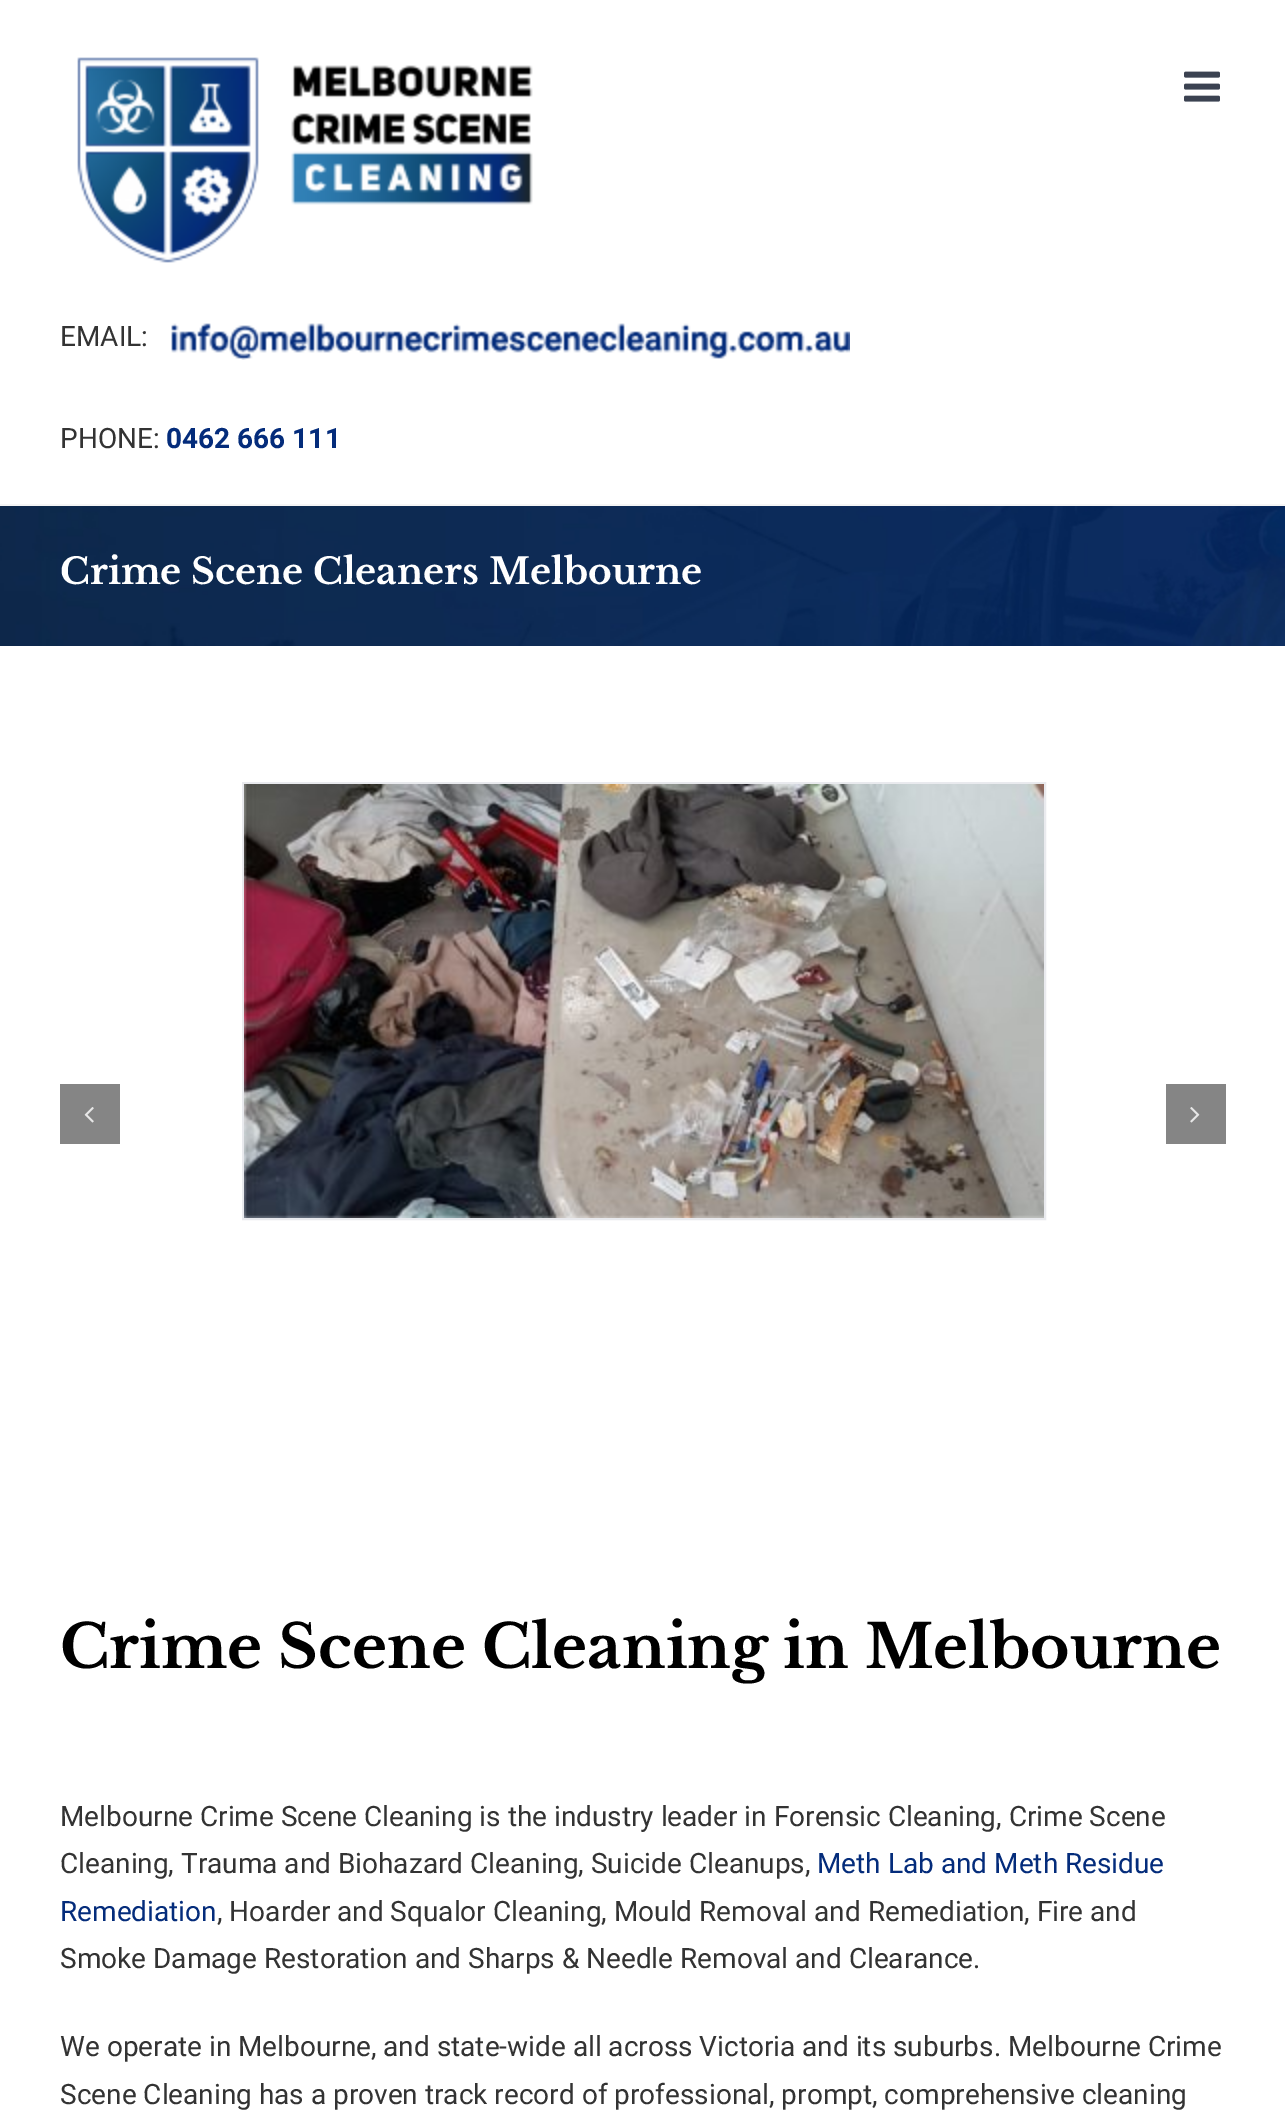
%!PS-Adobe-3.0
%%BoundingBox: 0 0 1285 2111
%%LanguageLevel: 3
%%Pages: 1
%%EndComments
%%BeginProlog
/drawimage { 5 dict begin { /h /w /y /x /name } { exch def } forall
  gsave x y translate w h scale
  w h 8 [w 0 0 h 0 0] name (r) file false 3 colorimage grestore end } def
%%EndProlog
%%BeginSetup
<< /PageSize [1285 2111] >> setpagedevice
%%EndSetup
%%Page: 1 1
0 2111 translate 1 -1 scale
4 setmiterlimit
1 setgray
0 0 1285 2111 rectfill
0.961 setgray
0 504 1285 2 rectfill
(images/1.raw) 1184 71 36 31 drawimage
(images/2.raw) 77 57 456 206 drawimage
(images/3.raw) 171 323 679 37 drawimage
(images/4.raw) 0 506 1285 140 drawimage
0.522 setgray
60 1084 60 60 rectfill
(images/5.raw) 84 1107 10 16 drawimage
0.914 0.918 0.933 setrgbcolor
2 setlinewidth
243 783 802 436 rectstroke
(images/6.raw) 244 784 800 434 drawimage
0.522 setgray
1166 1084 60 60 rectfill
(images/7.raw) 1190 1107 10 16 drawimage
/Roboto-Regular [28 0 0 -28 0 0] selectfont
0.2 setgray
60 346 moveto (EMAIL:) show
60 448 moveto (PHONE:) show
/Roboto-Bold [28 0 0 -28 0 0] selectfont
0.016 0.173 0.482 setrgbcolor
166 448 moveto (0462 666 111) show
/LibreBaskerville-Bold [36 0 0 -36 0 0] selectfont
1 setgray
60 584 moveto (Crime Scene Cleaners Melbourne) show
/LibreBaskerville-Bold [60 0 0 -60 0 0] selectfont
0 setgray
60 1668 moveto (Crime Scene Cleaning in Melbourne) show
/Roboto-Regular [28 0 0 -28 0 0] selectfont
0.2 setgray
60 1826 moveto (Melbourne Crime Scene Cleaning is the industry leader in Forensic Cleaning, Crime Scene) show
60 1873 moveto (Cleaning, Trauma and Biohazard Cleaning, Suicide Cleanups,) show
0.016 0.173 0.482 setrgbcolor
817 1873 moveto (Meth Lab and Meth Residue) show
60 1921 moveto (Remediation) show
0.2 setgray
217 1921 moveto (, Hoarder and Squalor Cleaning, Mould Removal and Remediation, Fire and) show
60 1968 moveto (Smoke Damage Restoration and Sharps & Needle Removal and Clearance.) show
60 2056 moveto (We operate in Melbourne, and state-wide all across Victoria and its suburbs. Melbourne Crime) show
60 2104 moveto (Scene Cleaning has a proven track record of professional, prompt, comprehensive cleaning) show
showpage
%%EOF
